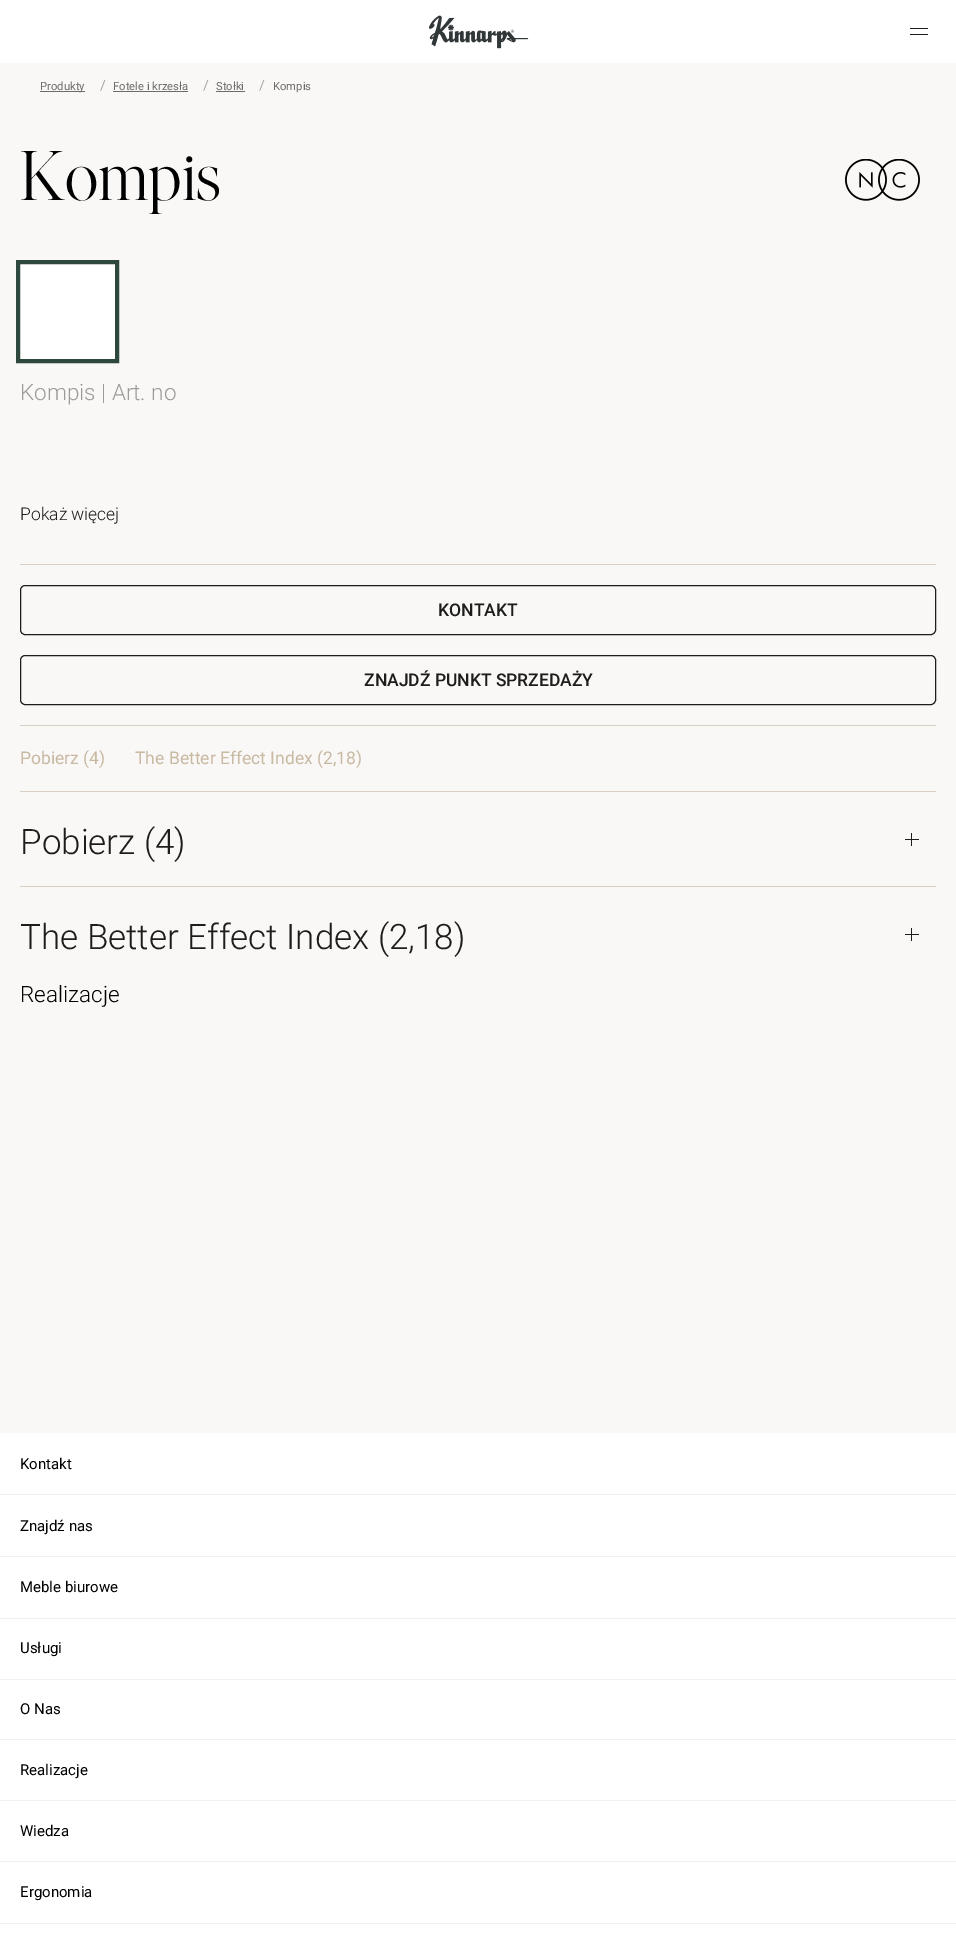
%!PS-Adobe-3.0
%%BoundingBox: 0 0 956 1952
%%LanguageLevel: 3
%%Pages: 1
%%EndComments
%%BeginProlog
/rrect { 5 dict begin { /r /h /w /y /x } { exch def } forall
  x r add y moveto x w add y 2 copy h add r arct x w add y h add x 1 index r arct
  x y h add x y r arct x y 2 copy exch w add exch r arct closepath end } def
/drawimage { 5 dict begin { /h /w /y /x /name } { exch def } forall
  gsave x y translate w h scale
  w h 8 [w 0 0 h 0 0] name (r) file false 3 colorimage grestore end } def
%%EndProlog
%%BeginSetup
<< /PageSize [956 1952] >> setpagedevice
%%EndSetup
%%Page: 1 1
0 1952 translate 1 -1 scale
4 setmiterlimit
0.98 0.973 0.965 setrgbcolor
0 0 956 1952 rectfill
1 setgray
0 0 956 63 rectfill
(images/1.raw) 429 15 100 34 drawimage
0.114 0.114 0.106 setrgbcolor
910 28 18 1 rectfill
910 34 18 1 rectfill
0.431 0.42 0.408 setrgbcolor
40 91 45 1 rectfill
113 91 75 1 rectfill
216 91 29 1 rectfill
(images/2.raw) 845 159 75 42 drawimage
1 setgray
newpath 18 262 moveto 117 262 lineto 117 361 lineto 18 361 lineto closepath gsave fill grestore
0.18 0.282 0.243 setrgbcolor
4 setlinewidth
stroke
0.855 0.816 0.757 setrgbcolor
20 564 916 1 rectfill
20 725 916 1 rectfill
0.114 0.114 0.106 setrgbcolor
1 setlinewidth
20.5 585.5 915 49 4.5 rrect stroke
20.5 655.5 915 49 4.5 rrect stroke
0.855 0.816 0.757 setrgbcolor
20 791 916 1 rectfill
0.114 0.114 0.106 setrgbcolor
905 839 14 1 rectfill
911 833 1 13 rectfill
0.855 0.816 0.757 setrgbcolor
20 886 916 1 rectfill
0.114 0.114 0.106 setrgbcolor
905 934 14 1 rectfill
911 928 1 13 rectfill
1 setgray
0 1433 956 519 rectfill
0.941 0.949 0.945 setrgbcolor
0 1494 956 1 rectfill
0 1556 956 1 rectfill
0 1618 956 1 rectfill
0 1679 956 1 rectfill
0 1739 956 1 rectfill
0 1800 956 1 rectfill
0 1861 956 1 rectfill
0 1923 956 1 rectfill
/Roboto-Regular [11.25 0 0 -11.25 0 0] selectfont
0.431 0.42 0.408 setrgbcolor
40 90 moveto (Produkty) show
/Roboto-Regular [14 0 0 -14 0 0] selectfont
0.635 0.651 0.659 setrgbcolor
100 90 moveto (/) show
/Roboto-Regular [11.25 0 0 -11.25 0 0] selectfont
0.431 0.42 0.408 setrgbcolor
113 90 moveto (Fotele i krzesła) show
/Roboto-Regular [14 0 0 -14 0 0] selectfont
0.635 0.651 0.659 setrgbcolor
203 90 moveto (/) show
/Roboto-Regular [11.25 0 0 -11.25 0 0] selectfont
0.431 0.42 0.408 setrgbcolor
216 90 moveto (Stołki) show
/Roboto-Regular [14 0 0 -14 0 0] selectfont
0.635 0.651 0.659 setrgbcolor
259 90 moveto (/) show
/Roboto-Regular [11.25 0 0 -11.25 0 0] selectfont
0.431 0.42 0.408 setrgbcolor
273 90 moveto (Kompis) show
/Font-Light [70 0 0 -70 0 0] selectfont
0 setgray
20 200 moveto (Kompis) show
/Roboto-Light [22.5 0 0 -22.5 0 0] selectfont
0.616 0.608 0.6 setrgbcolor
20 400 moveto (Kompis | Art. no) show
/Roboto-Light [17.5 0 0 -17.5 0 0] selectfont
0.114 0.114 0.106 setrgbcolor
20 520 moveto (Pokaż więcej) show
/Roboto-Medium [17.5 0 0 -17.5 0 0] selectfont
438 616 moveto (KONTAKT) show
364 686 moveto (ZNAJDŹ PUNKT SPRZEDAŻY) show
/Roboto-Regular [17.5 0 0 -17.5 0 0] selectfont
0.784 0.725 0.639 setrgbcolor
20 764 moveto (Pobierz \(4\)) show
135 764 moveto (The Better Effect Index \(2,18\)) show
/Roboto-Light [35 0 0 -35 0 0] selectfont
0.114 0.114 0.106 setrgbcolor
20 854 moveto (Pobierz \(4\)) show
20 949 moveto (The Better Effect Index \(2,18\)) show
/Roboto-Light [22.5 0 0 -22.5 0 0] selectfont
0 setgray
20 1002 moveto (Realizacje) show
/Roboto-Regular [15 0 0 -15 0 0] selectfont
20 1469 moveto (Kontakt) show
20 1531 moveto (Znajdź nas) show
20 1592 moveto (Meble biurowe) show
20 1653 moveto (Usługi) show
20 1714 moveto (O Nas) show
20 1775 moveto (Realizacje) show
20 1836 moveto (Wiedza) show
20 1897 moveto (Ergonomia) show
showpage
%%EOF
